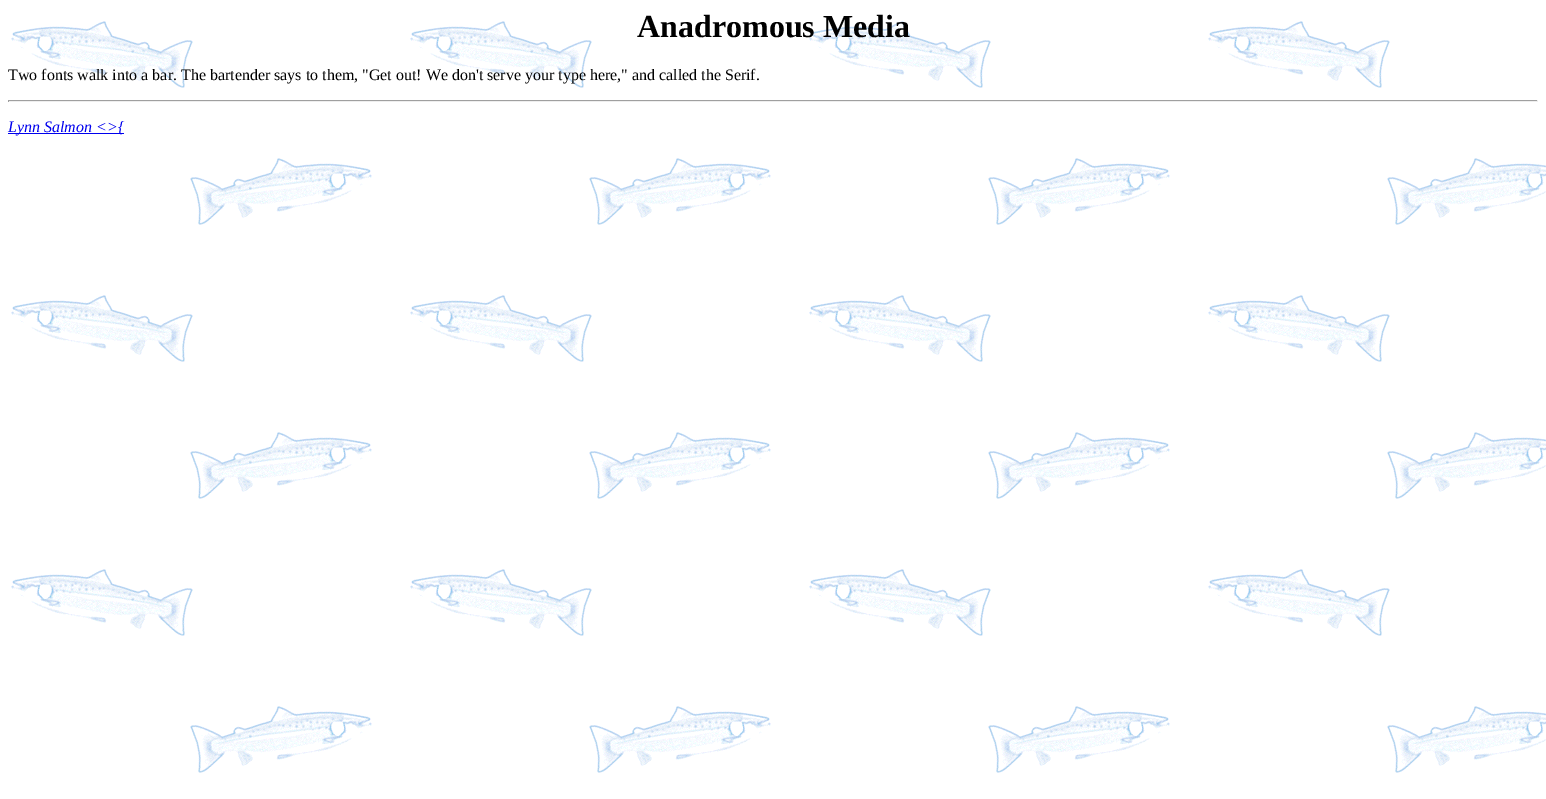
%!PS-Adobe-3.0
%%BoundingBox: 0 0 1546 799
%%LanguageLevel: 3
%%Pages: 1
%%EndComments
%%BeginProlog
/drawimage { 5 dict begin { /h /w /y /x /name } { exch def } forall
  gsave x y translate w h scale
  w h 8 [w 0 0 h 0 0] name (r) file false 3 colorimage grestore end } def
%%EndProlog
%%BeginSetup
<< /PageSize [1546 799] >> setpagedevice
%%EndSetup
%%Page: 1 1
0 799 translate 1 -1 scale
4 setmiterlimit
1 setgray
0 0 1546 799 rectfill
(images/1.raw) 11 21 1535 752 drawimage
0.624 setgray
8 100 1530 1 rectfill
0.933 setgray
1537 100 1 2 rectfill
8 101 1530 1 rectfill
0.624 setgray
8 100 1 2 rectfill
0 0 0.933 setrgbcolor
8 133 116 1 rectfill
/LiberationSerif-Bold [32 0 0 -32 0 0] selectfont
0 setgray
637 37 moveto (Anadromous Media) show
/LiberationSerif-Regular [16 0 0 -16 0 0] selectfont
8 80 moveto (Two fonts walk into a bar. The bartender says to them, "Get out! We don't serve your type here," and called the Serif.) show
/LiberationSerif-Italic [16 0 0 -16 0 0] selectfont
0 0 0.933 setrgbcolor
8 132 moveto (Lynn Salmon <>{) show
showpage
%%EOF
